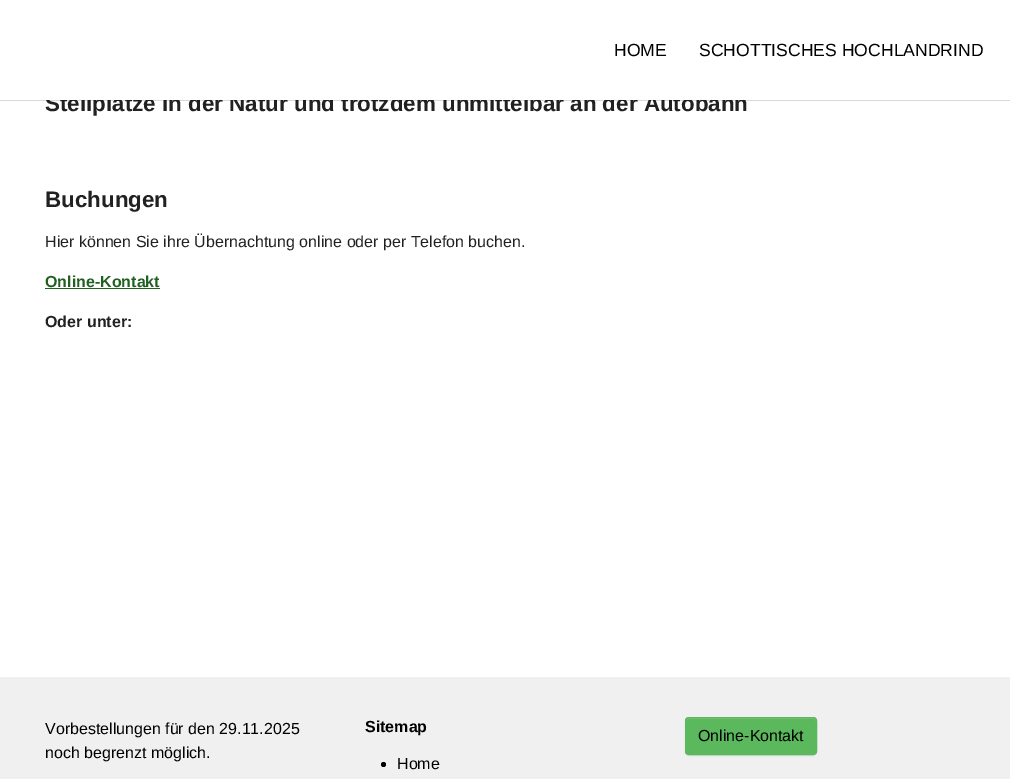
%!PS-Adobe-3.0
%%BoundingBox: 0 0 1010 779
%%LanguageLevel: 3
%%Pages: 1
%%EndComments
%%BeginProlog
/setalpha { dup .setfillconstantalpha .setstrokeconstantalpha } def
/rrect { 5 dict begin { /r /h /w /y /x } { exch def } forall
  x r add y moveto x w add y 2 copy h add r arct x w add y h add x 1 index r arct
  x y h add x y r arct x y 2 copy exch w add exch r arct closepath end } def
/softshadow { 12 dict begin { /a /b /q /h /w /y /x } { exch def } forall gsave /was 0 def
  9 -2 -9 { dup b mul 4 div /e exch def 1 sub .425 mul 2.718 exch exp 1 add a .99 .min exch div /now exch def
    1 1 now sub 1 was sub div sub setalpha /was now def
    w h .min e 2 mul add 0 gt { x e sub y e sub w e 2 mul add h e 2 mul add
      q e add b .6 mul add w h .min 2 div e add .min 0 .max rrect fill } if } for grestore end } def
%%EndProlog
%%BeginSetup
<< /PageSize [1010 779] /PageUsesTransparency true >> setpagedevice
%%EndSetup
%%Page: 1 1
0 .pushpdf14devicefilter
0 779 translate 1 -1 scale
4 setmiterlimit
1 setgray
0 0 1010 779 rectfill
0.125 0.376 0.125 setrgbcolor
45 288 115 1 rectfill
0.941 setgray
0 677 1010 102 rectfill
0 setgray
newpath 383.5 764.5 2.5 0 360 arc closepath fill
685 718 132 38 4 0.5 0.07 softshadow
0.361 0.722 0.361 setrgbcolor
685 717 132 38 4 rrect fill
0.455 0.765 0.455 setrgbcolor
newpath 689 719 moveto 813 719 lineto 815 719 816 720 816 722 curveto 816 720 816 718 814 718 curveto 688 718 lineto 686 718 686 720 686 722 curveto 686 720 687 719 689 719 curveto closepath fill
0.361 0.722 0.361 setrgbcolor
685.5 717.5 131 37 3.5 rrect stroke
/LiberationSans-Regular [17.6 0 0 -17.6 0 0] selectfont
0 setgray
614 56 moveto (HOME) show
699 56 moveto (SCHOTTISCHES HOCHLANDRIND) show
/LiberationSans-Bold [22.4 0 0 -22.4 0 0] selectfont
0.129 setgray
45 111 moveto (Stellplätze in der Natur und trotzdem unmittelbar an der Autobahn) show
1 setgray
46 94 700 6 rectfill
0.15 setalpha
0 setgray
0 100 1010 1 rectfill
1 setalpha
0.129 setgray
45 207 moveto (Buchungen) show
/LiberationSans-Regular [16 0 0 -16 0 0] selectfont
45 247 moveto (Hier können Sie ihre Übernachtung online oder per Telefon buchen.) show
/LiberationSans-Bold [16 0 0 -16 0 0] selectfont
0.125 0.376 0.125 setrgbcolor
45 287 moveto (Online-Kontakt) show
0.129 setgray
45 327 moveto (Oder unter:) show
/LiberationSans-Regular [16 0 0 -16 0 0] selectfont
0 setgray
45 734 moveto (Vorbestellungen für den 29.11.2025) show
45 758 moveto (noch begrenzt möglich.) show
/LiberationSans-Bold [16 0 0 -16 0 0] selectfont
365 732 moveto (Sitemap) show
/LiberationSans-Regular [16 0 0 -16 0 0] selectfont
397 769 moveto (Home) show
698 741 moveto (Online-Kontakt) show
.poppdf14devicefilter showpage
%%EOF
